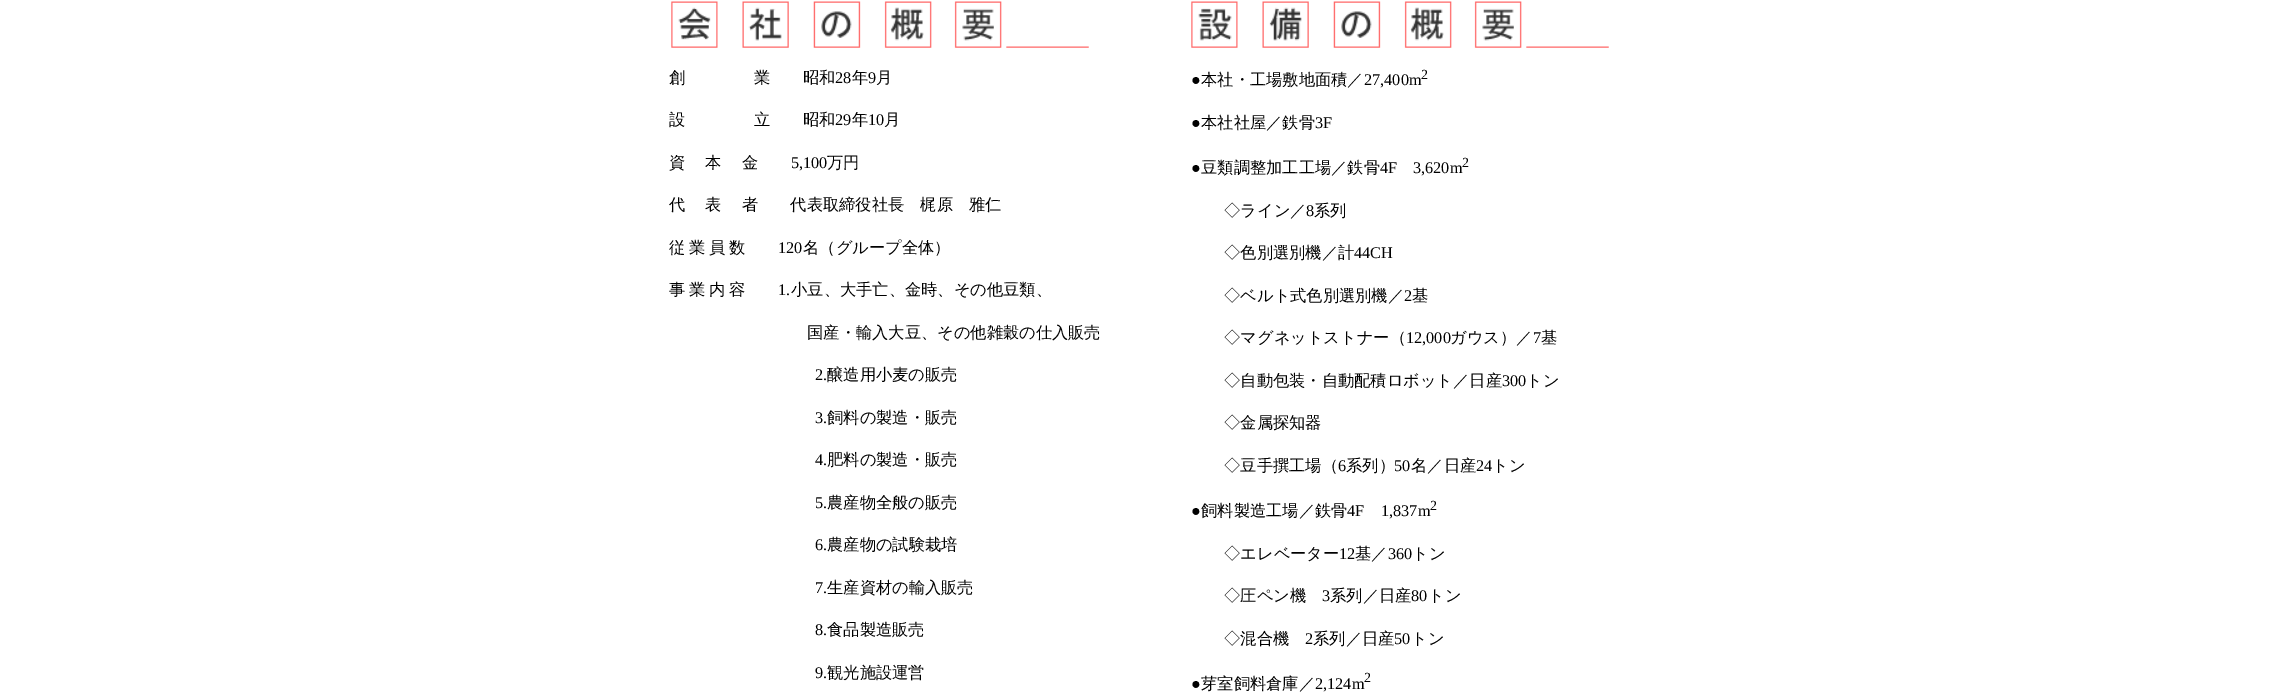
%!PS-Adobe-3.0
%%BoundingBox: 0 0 2295 699
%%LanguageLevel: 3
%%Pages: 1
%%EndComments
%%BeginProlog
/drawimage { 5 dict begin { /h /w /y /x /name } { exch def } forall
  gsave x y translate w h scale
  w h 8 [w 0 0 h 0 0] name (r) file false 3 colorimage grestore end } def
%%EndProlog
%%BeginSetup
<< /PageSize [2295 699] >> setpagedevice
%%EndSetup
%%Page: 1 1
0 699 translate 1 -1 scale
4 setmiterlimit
1 setgray
0 0 2295 699 rectfill
(images/1.raw) 671 1 418 47 drawimage
(images/2.raw) 1191 1 418 47 drawimage
/WenQuanYiZenHei-Medium [16.25 0 0 -16.25 0 0] selectfont
0 setgray
669 83 moveto -1 0 32 (創　　 　　業　　昭和) widthshow
/LiberationSerif-Regular [16.25 0 0 -16.25 0 0] selectfont
835 83 moveto (28) show
/WenQuanYiZenHei-Medium [16.25 0 0 -16.25 0 0] selectfont
852 83 moveto (年) show
/LiberationSerif-Regular [16.25 0 0 -16.25 0 0] selectfont
868 83 moveto (9) show
/WenQuanYiZenHei-Medium [16.25 0 0 -16.25 0 0] selectfont
876 83 moveto (月) show
669 125 moveto -1 0 32 (設　　　　 立　　昭和) widthshow
/LiberationSerif-Regular [16.25 0 0 -16.25 0 0] selectfont
835 125 moveto (29) show
/WenQuanYiZenHei-Medium [16.25 0 0 -16.25 0 0] selectfont
852 125 moveto (年) show
/LiberationSerif-Regular [16.25 0 0 -16.25 0 0] selectfont
868 125 moveto (10) show
/WenQuanYiZenHei-Medium [16.25 0 0 -16.25 0 0] selectfont
884 125 moveto (月) show
669 168 moveto -1 0 32 (資　 本　 金) widthshow
/LiberationSerif-Regular [16.25 0 0 -16.25 0 0] selectfont
791 168 moveto (5,100) show
/WenQuanYiZenHei-Medium [16.25 0 0 -16.25 0 0] selectfont
827 168 moveto (万円) show
669 210 moveto -1 0 32 (代　 表 　者　　代表取締役社長　梶原　雅仁) widthshow
669 253 moveto -1 0 32 (従 業 員 数) widthshow
/LiberationSerif-Regular [16.25 0 0 -16.25 0 0] selectfont
778 253 moveto (120) show
/WenQuanYiZenHei-Medium [16.25 0 0 -16.25 0 0] selectfont
803 253 moveto (名（グループ全体）) show
669 295 moveto -1 0 32 (事 業 内 容) widthshow
/LiberationSerif-Regular [16.25 0 0 -16.25 0 0] selectfont
778 295 moveto (1.) show
/WenQuanYiZenHei-Medium [16.25 0 0 -16.25 0 0] selectfont
791 295 moveto (小豆、大手亡、金時、その他豆類、) show
807 338 moveto (国産・輸入大豆、その他雑穀の仕入販売) show
/LiberationSerif-Regular [16.25 0 0 -16.25 0 0] selectfont
815 380 moveto (2.) show
/WenQuanYiZenHei-Medium [16.25 0 0 -16.25 0 0] selectfont
827 380 moveto (醸造用小麦の販売) show
/LiberationSerif-Regular [16.25 0 0 -16.25 0 0] selectfont
815 423 moveto (3.) show
/WenQuanYiZenHei-Medium [16.25 0 0 -16.25 0 0] selectfont
827 423 moveto (飼料の製造・販売) show
/LiberationSerif-Regular [16.25 0 0 -16.25 0 0] selectfont
815 465 moveto (4.) show
/WenQuanYiZenHei-Medium [16.25 0 0 -16.25 0 0] selectfont
827 465 moveto (肥料の製造・販売) show
/LiberationSerif-Regular [16.25 0 0 -16.25 0 0] selectfont
815 508 moveto (5.) show
/WenQuanYiZenHei-Medium [16.25 0 0 -16.25 0 0] selectfont
827 508 moveto (農産物全般の販売) show
/LiberationSerif-Regular [16.25 0 0 -16.25 0 0] selectfont
815 550 moveto (6.) show
/WenQuanYiZenHei-Medium [16.25 0 0 -16.25 0 0] selectfont
827 550 moveto (農産物の試験栽培) show
/LiberationSerif-Regular [16.25 0 0 -16.25 0 0] selectfont
815 593 moveto (7.) show
/WenQuanYiZenHei-Medium [16.25 0 0 -16.25 0 0] selectfont
827 593 moveto (生産資材の輸入販売) show
/LiberationSerif-Regular [16.25 0 0 -16.25 0 0] selectfont
815 635 moveto (8.) show
/WenQuanYiZenHei-Medium [16.25 0 0 -16.25 0 0] selectfont
827 635 moveto (食品製造販売) show
/LiberationSerif-Regular [16.25 0 0 -16.25 0 0] selectfont
815 678 moveto (9.) show
/WenQuanYiZenHei-Medium [16.25 0 0 -16.25 0 0] selectfont
827 678 moveto (観光施設運営) show
/LiberationSerif-Regular [16.25 0 0 -16.25 0 0] selectfont
1191 85 moveto (●) show
/WenQuanYiZenHei-Medium [16.25 0 0 -16.25 0 0] selectfont
1201 85 moveto (本社・工場敷地面積／) show
/LiberationSerif-Regular [16.25 0 0 -16.25 0 0] selectfont
1364 85 moveto (27,400m) show
/LiberationSerif-Regular [14 0 0 -14 0 0] selectfont
1421 79 moveto (2) show
/LiberationSerif-Regular [16.25 0 0 -16.25 0 0] selectfont
1191 128 moveto (●) show
/WenQuanYiZenHei-Medium [16.25 0 0 -16.25 0 0] selectfont
1201 128 moveto (本社社屋／鉄骨) show
/LiberationSerif-Regular [16.25 0 0 -16.25 0 0] selectfont
1315 128 moveto (3F) show
1191 173 moveto (●) show
/WenQuanYiZenHei-Medium [16.25 0 0 -16.25 0 0] selectfont
1201 173 moveto (豆類調整加工工場／鉄骨) show
/LiberationSerif-Regular [16.25 0 0 -16.25 0 0] selectfont
1380 173 moveto (4F) show
1413 173 moveto (3,620m) show
/LiberationSerif-Regular [14 0 0 -14 0 0] selectfont
1462 167 moveto (2) show
/WenQuanYiZenHei-Medium [16.25 0 0 -16.25 0 0] selectfont
1224 216 moveto (◇ライン／) show
/LiberationSerif-Regular [16.25 0 0 -16.25 0 0] selectfont
1306 216 moveto (8) show
/WenQuanYiZenHei-Medium [16.25 0 0 -16.25 0 0] selectfont
1314 216 moveto (系列) show
1224 258 moveto (◇色別選別機／計) show
/LiberationSerif-Regular [16.25 0 0 -16.25 0 0] selectfont
1354 258 moveto (44CH) show
/WenQuanYiZenHei-Medium [16.25 0 0 -16.25 0 0] selectfont
1224 301 moveto (◇ベルト式色別選別機／) show
/LiberationSerif-Regular [16.25 0 0 -16.25 0 0] selectfont
1404 301 moveto (2) show
/WenQuanYiZenHei-Medium [16.25 0 0 -16.25 0 0] selectfont
1412 301 moveto (基) show
1224 343 moveto (◇マグネットストナー（) show
/LiberationSerif-Regular [16.25 0 0 -16.25 0 0] selectfont
1406 343 moveto (12,000) show
/WenQuanYiZenHei-Medium [16.25 0 0 -16.25 0 0] selectfont
1450 343 moveto (ガウス）／) show
/LiberationSerif-Regular [16.25 0 0 -16.25 0 0] selectfont
1533 343 moveto (7) show
/WenQuanYiZenHei-Medium [16.25 0 0 -16.25 0 0] selectfont
1541 343 moveto (基) show
1224 386 moveto (◇自動包装・自動配積ロボット／日産) show
/LiberationSerif-Regular [16.25 0 0 -16.25 0 0] selectfont
1502 386 moveto (300) show
/WenQuanYiZenHei-Medium [16.25 0 0 -16.25 0 0] selectfont
1526 386 moveto (トン) show
1224 428 moveto (◇金属探知器) show
1224 471 moveto (◇豆手撰工場（) show
/LiberationSerif-Regular [16.25 0 0 -16.25 0 0] selectfont
1338 471 moveto (6) show
/WenQuanYiZenHei-Medium [16.25 0 0 -16.25 0 0] selectfont
1346 471 moveto (系列）) show
/LiberationSerif-Regular [16.25 0 0 -16.25 0 0] selectfont
1394 471 moveto (50) show
/WenQuanYiZenHei-Medium [16.25 0 0 -16.25 0 0] selectfont
1411 471 moveto (名／日産) show
/LiberationSerif-Regular [16.25 0 0 -16.25 0 0] selectfont
1476 471 moveto (24) show
/WenQuanYiZenHei-Medium [16.25 0 0 -16.25 0 0] selectfont
1492 471 moveto (トン) show
/LiberationSerif-Regular [16.25 0 0 -16.25 0 0] selectfont
1191 516 moveto (●) show
/WenQuanYiZenHei-Medium [16.25 0 0 -16.25 0 0] selectfont
1201 516 moveto (飼料製造工場／鉄骨) show
/LiberationSerif-Regular [16.25 0 0 -16.25 0 0] selectfont
1347 516 moveto (4F) show
1381 516 moveto (1,837m) show
/LiberationSerif-Regular [14 0 0 -14 0 0] selectfont
1430 510 moveto (2) show
/WenQuanYiZenHei-Medium [16.25 0 0 -16.25 0 0] selectfont
1224 559 moveto (◇エレベーター) show
/LiberationSerif-Regular [16.25 0 0 -16.25 0 0] selectfont
1339 559 moveto (12) show
/WenQuanYiZenHei-Medium [16.25 0 0 -16.25 0 0] selectfont
1355 559 moveto (基／) show
/LiberationSerif-Regular [16.25 0 0 -16.25 0 0] selectfont
1388 559 moveto (360) show
/WenQuanYiZenHei-Medium [16.25 0 0 -16.25 0 0] selectfont
1412 559 moveto (トン) show
1224 601 moveto (◇圧ペン機) show
/LiberationSerif-Regular [16.25 0 0 -16.25 0 0] selectfont
1322 601 moveto (3) show
/WenQuanYiZenHei-Medium [16.25 0 0 -16.25 0 0] selectfont
1330 601 moveto (系列／日産) show
/LiberationSerif-Regular [16.25 0 0 -16.25 0 0] selectfont
1411 601 moveto (80) show
/WenQuanYiZenHei-Medium [16.25 0 0 -16.25 0 0] selectfont
1428 601 moveto (トン) show
1224 644 moveto (◇混合機) show
/LiberationSerif-Regular [16.25 0 0 -16.25 0 0] selectfont
1305 644 moveto (2) show
/WenQuanYiZenHei-Medium [16.25 0 0 -16.25 0 0] selectfont
1313 644 moveto (系列／日産) show
/LiberationSerif-Regular [16.25 0 0 -16.25 0 0] selectfont
1394 644 moveto (50) show
/WenQuanYiZenHei-Medium [16.25 0 0 -16.25 0 0] selectfont
1411 644 moveto (トン) show
/LiberationSerif-Regular [16.25 0 0 -16.25 0 0] selectfont
1191 689 moveto (●) show
/WenQuanYiZenHei-Medium [16.25 0 0 -16.25 0 0] selectfont
1201 689 moveto (芽室飼料倉庫／) show
/LiberationSerif-Regular [16.25 0 0 -16.25 0 0] selectfont
1315 689 moveto (2,124m) show
/LiberationSerif-Regular [14 0 0 -14 0 0] selectfont
1364 682 moveto (2) show
showpage
%%EOF
